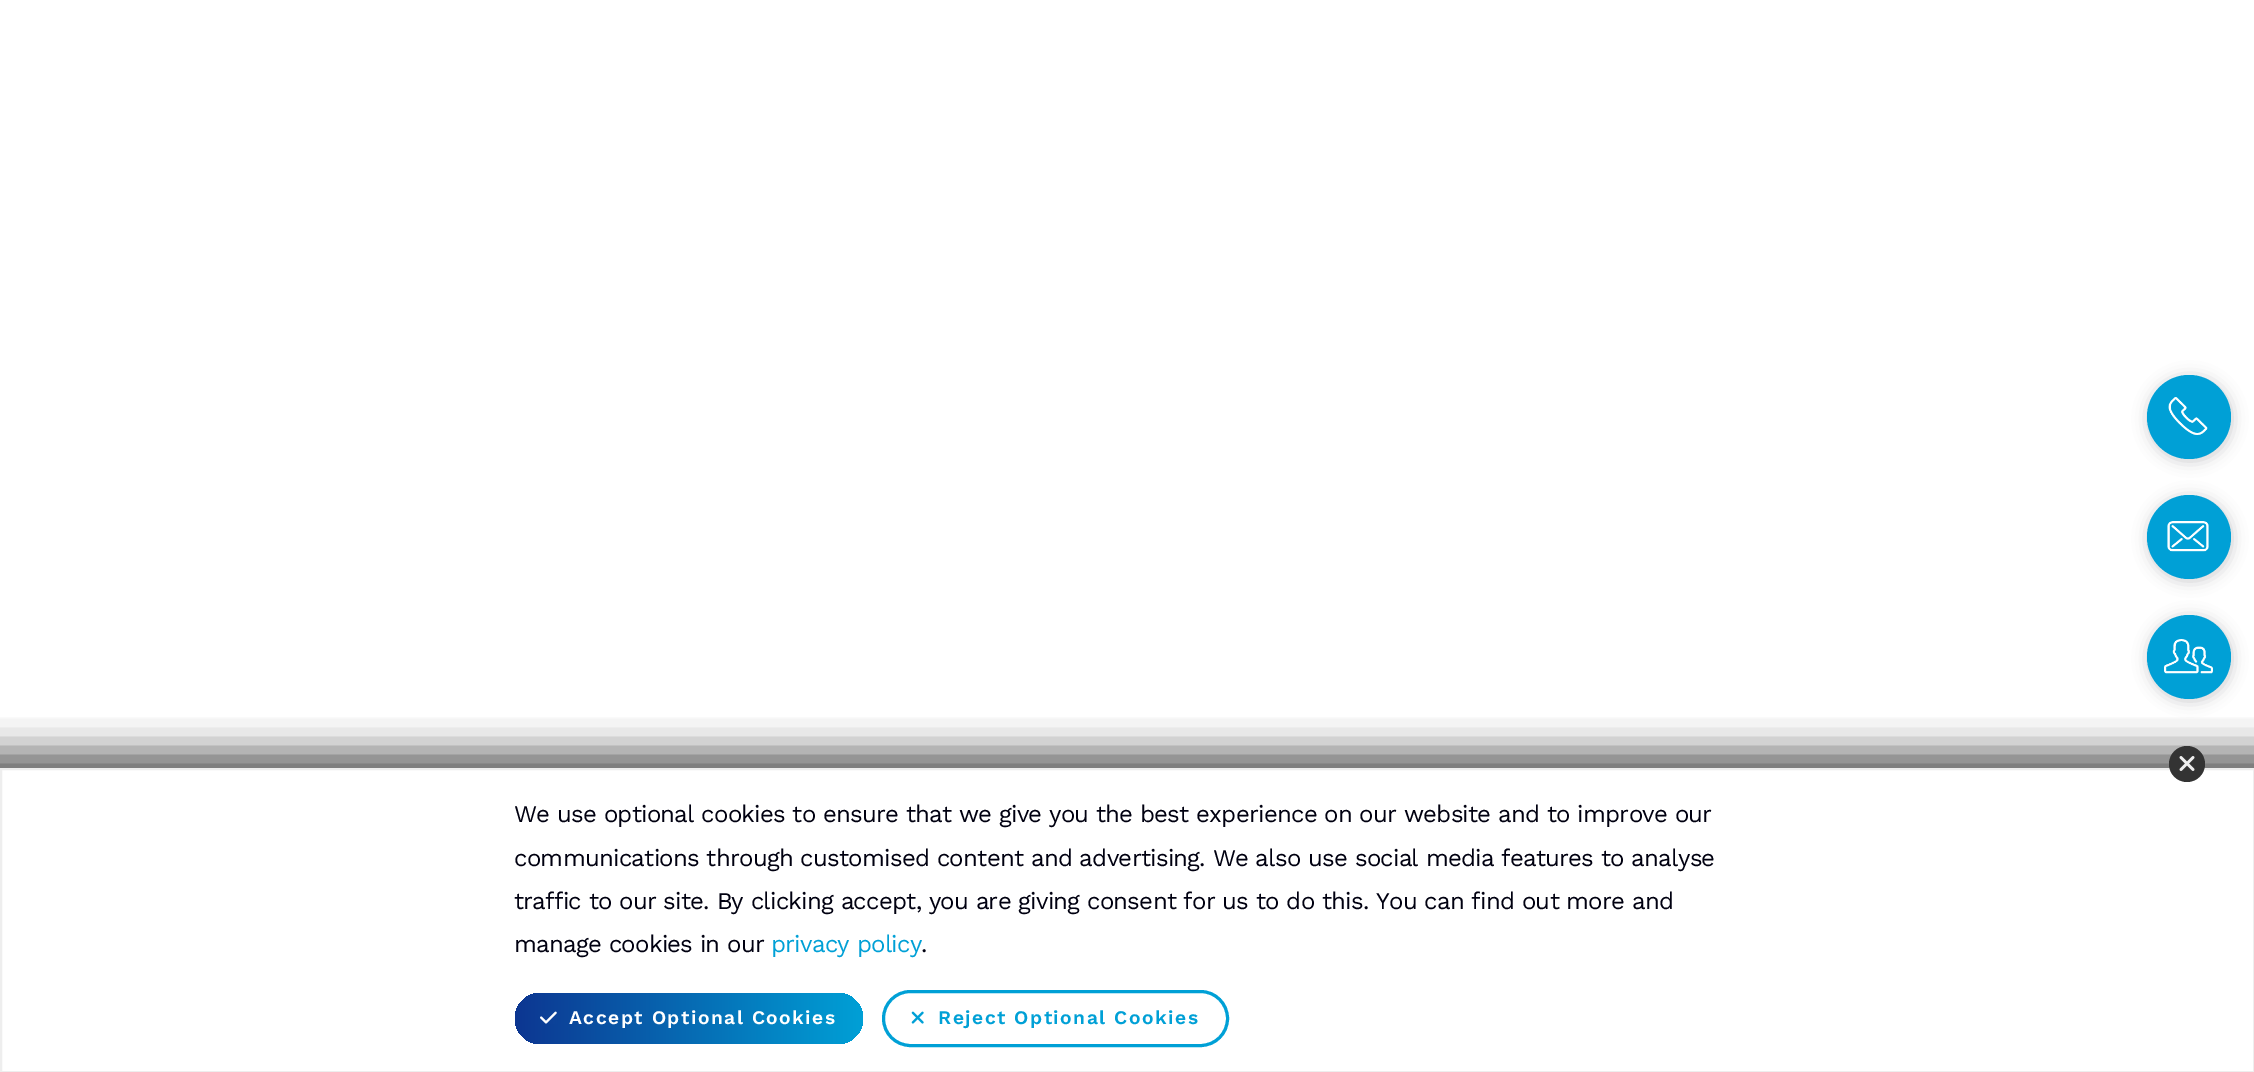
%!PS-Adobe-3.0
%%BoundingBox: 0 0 2254 1072
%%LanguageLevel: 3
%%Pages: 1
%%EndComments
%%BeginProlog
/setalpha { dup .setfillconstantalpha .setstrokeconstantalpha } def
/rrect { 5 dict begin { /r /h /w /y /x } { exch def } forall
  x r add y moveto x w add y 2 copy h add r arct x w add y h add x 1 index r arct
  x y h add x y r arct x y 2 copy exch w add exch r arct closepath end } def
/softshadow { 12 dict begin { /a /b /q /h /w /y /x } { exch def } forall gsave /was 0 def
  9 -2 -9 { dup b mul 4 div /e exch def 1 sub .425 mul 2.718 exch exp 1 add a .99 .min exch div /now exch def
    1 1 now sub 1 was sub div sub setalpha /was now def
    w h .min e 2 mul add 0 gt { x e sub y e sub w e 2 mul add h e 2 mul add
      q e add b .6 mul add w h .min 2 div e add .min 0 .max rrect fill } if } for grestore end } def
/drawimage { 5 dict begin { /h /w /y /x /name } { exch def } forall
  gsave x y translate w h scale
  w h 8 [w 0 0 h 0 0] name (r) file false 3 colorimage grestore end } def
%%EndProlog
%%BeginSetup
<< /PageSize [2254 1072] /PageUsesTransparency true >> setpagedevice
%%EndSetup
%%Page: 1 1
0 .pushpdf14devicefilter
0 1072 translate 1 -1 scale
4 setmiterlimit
1 setgray
0 0 2254 1072 rectfill
0 0 0.063 setrgbcolor
2148 377 84 84 42 7.5 0.2 softshadow
0 0.627 0.839 setrgbcolor
newpath 2189 417 42 0 360 arc closepath fill
(images/1.raw) 2168 397 40 38 drawimage
0 0 0.063 setrgbcolor
2148 497 84 84 42 7.5 0.2 softshadow
0 0.627 0.839 setrgbcolor
newpath 2189 537 42 0 360 arc closepath fill
(images/2.raw) 2167 521 42 31 drawimage
0 0 0.063 setrgbcolor
2148 617 84 84 42 7.5 0.2 softshadow
0 0.627 0.839 setrgbcolor
newpath 2189 657 42 0 360 arc closepath fill
(images/3.raw) 2164 639 49 35 drawimage
gsave
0 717 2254 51 rectclip
0 setgray
-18 750 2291 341 0 18 0.6 softshadow
grestore
0.933 setgray
2 setlinewidth
1 769 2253 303 rectstroke
0.2 setgray
newpath 2187 764 18 0 360 arc closepath fill
(images/4.raw) 2179 756 16 15 drawimage
gsave 515 993 348 51 25.5 rrect clip newpath
<< /ShadingType 2 /ColorSpace /DeviceRGB /Coords [863 1019 515 1019] /Extend [true true] /Function << /FunctionType 2 /Domain [0 1] /C0 [0 0.627 0.839] /C1 [0.051 0.212 0.569] /N 1 >> >> shfill grestore
(images/5.raw) 540 1011 17 13 drawimage
0 0.627 0.839 setrgbcolor
3 setlinewidth
883.5 991.5 344 54 27 rrect stroke
(images/6.raw) 911 1011 13 13 drawimage
/WorkSans-Regular [24 0 0 -24 0 0] selectfont
0 0 0.063 setrgbcolor
514 822 moveto -0.72 0 (We use optional cookies to ensure that we give you the best experience on our website and to improve our) ashow
514 866 moveto -0.72 0 (communications through customised content and advertising. We also use social media features to analyse) ashow
514 909 moveto -0.72 0 (traffic to our site. By clicking accept, you are giving consent for us to do this. You can find out more and) ashow
514 952 moveto -0.72 0 (manage cookies in our) ashow
0 0.627 0.839 setrgbcolor
771 952 moveto -0.72 0 (privacy policy) ashow
0 0 0.063 setrgbcolor
921 952 moveto -0.72 0 (.) ashow
/WorkSans-SemiBold [19.25 0 0 -19.25 0 0] selectfont
1 setgray
569 1024 moveto 1.5 0 (Accept Optional Cookies) ashow
0 0.627 0.839 setrgbcolor
938 1024 moveto 1.5 0 (Reject Optional Cookies) ashow
.poppdf14devicefilter showpage
%%EOF
